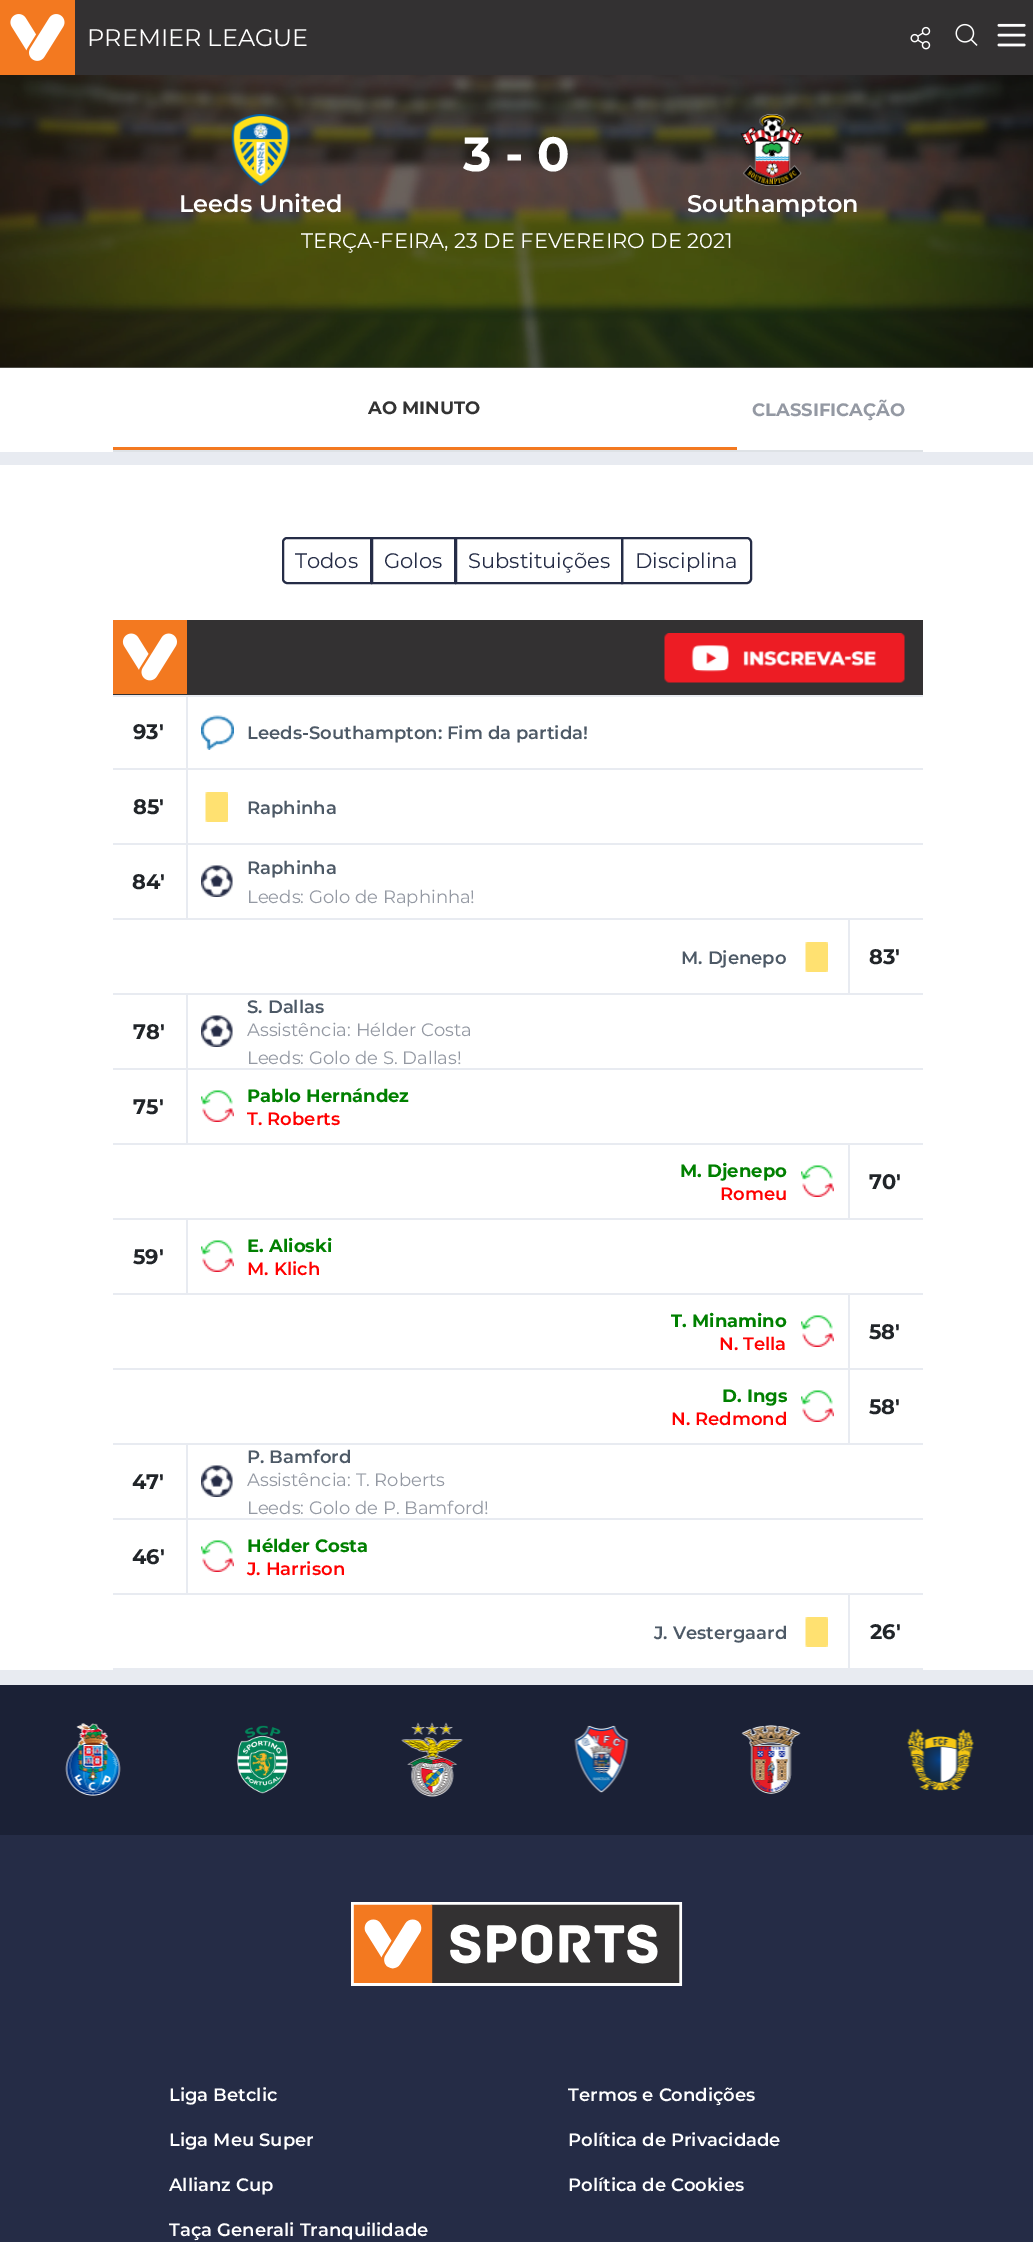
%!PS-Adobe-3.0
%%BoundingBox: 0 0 1033 2242
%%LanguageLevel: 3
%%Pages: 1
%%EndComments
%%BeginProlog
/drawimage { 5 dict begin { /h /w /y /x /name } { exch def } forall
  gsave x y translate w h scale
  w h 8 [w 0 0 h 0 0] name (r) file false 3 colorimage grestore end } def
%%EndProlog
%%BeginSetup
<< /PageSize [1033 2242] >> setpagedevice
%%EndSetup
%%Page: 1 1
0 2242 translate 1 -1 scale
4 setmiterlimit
1 setgray
0 0 1033 2242 rectfill
0.502 setgray
0 367 1033 1 rectfill
0.2 0.192 0.196 setrgbcolor
75 0 958 75 rectfill
0.953 0.475 0.125 setrgbcolor
0 0 75 75 rectfill
(images/1.raw) 10 14 55 47 drawimage
(images/2.raw) 910 26 21 24 drawimage
(images/3.raw) 955 23 23 23 drawimage
(images/4.raw) 997 23 29 24 drawimage
(images/5.raw) 0 75 1033 293 drawimage
(images/6.raw) 231 114 60 72 drawimage
(images/7.raw) 740 114 64 72 drawimage
0.871 0.886 0.902 setrgbcolor
113 450 810 2 rectfill
0.953 0.475 0.125 setrgbcolor
113 447 624 3 rectfill
0.91 0.922 0.945 setrgbcolor
0 452 1033 13 rectfill
0.145 0.173 0.275 setrgbcolor
2 setlinewidth
newpath 287 538 moveto 371 538 lineto 371 583 lineto 287 583 lineto 285 583 283 581 283 579 curveto 283 542 lineto 283 540 285 538 287 538 curveto closepath stroke
372 538 83 45 rectstroke
456 538 166 45 rectstroke
newpath 622 538 moveto 747 538 lineto 749 538 751 540 751 542 curveto 751 579 lineto 751 581 749 583 747 583 curveto 622 583 lineto closepath stroke
0.2 0.192 0.196 setrgbcolor
113 620 810 75 rectfill
(images/8.raw) 113 620 74 74 drawimage
(images/9.raw) 664 633 241 50 drawimage
0.91 0.922 0.945 setrgbcolor
113 695 810 2 rectfill
113 768 810 2 rectfill
186 696 2 72 rectfill
(images/10.raw) 201 715 33 35 drawimage
113 843 810 2 rectfill
186 770 2 73 rectfill
(images/11.raw) 205 792 23 30 drawimage
113 918 810 2 rectfill
186 845 2 73 rectfill
(images/12.raw) 201 865 32 32 drawimage
113 993 810 2 rectfill
(images/11.raw) 805 942 23 30 drawimage
848 920 2 73 rectfill
113 1068 810 2 rectfill
186 995 2 73 rectfill
(images/12.raw) 201 1015 32 32 drawimage
113 1143 810 2 rectfill
186 1070 2 73 rectfill
(images/13.raw) 201 1090 33 32 drawimage
113 1218 810 2 rectfill
(images/13.raw) 801 1165 33 32 drawimage
848 1145 2 73 rectfill
113 1293 810 2 rectfill
186 1220 2 73 rectfill
(images/13.raw) 201 1240 33 32 drawimage
113 1368 810 2 rectfill
(images/13.raw) 801 1315 33 32 drawimage
848 1295 2 73 rectfill
113 1443 810 2 rectfill
(images/13.raw) 801 1390 33 32 drawimage
848 1370 2 73 rectfill
113 1518 810 2 rectfill
186 1445 2 73 rectfill
(images/12.raw) 201 1465 32 32 drawimage
113 1593 810 2 rectfill
186 1520 2 73 rectfill
(images/13.raw) 201 1540 33 32 drawimage
113 1668 810 2 rectfill
(images/11.raw) 805 1617 23 30 drawimage
848 1595 2 73 rectfill
0.145 0.173 0.275 setrgbcolor
0 1835 1033 407 rectfill
0.91 0.922 0.945 setrgbcolor
0 1670 1033 15 rectfill
0.106 0.129 0.212 setrgbcolor
0 1685 1033 150 rectfill
(images/14.raw) 65 1723 56 73 drawimage
(images/15.raw) 237 1725 51 69 drawimage
(images/16.raw) 401 1722 62 75 drawimage
(images/17.raw) 574 1725 55 68 drawimage
(images/18.raw) 741 1725 60 69 drawimage
(images/19.raw) 907 1728 67 63 drawimage
(images/20.raw) 351 1902 332 84 drawimage
/Montserrat-Regular [24 0 0 -24 0 0] selectfont
1 setgray
87 46 moveto (PREMIER LEAGUE) show
/Montserrat-Bold [48 0 0 -48 0 0] selectfont
463 171 moveto (3 - 0) show
/Montserrat-SemiBold [24 0 0 -24 0 0] selectfont
179 212 moveto (Leeds United) show
687 212 moveto (Southampton) show
/Montserrat-Regular [21 0 0 -21 0 0] selectfont
301 248 moveto (TERÇA-FEIRA, 23 DE FEVEREIRO DE 2021) show
/Montserrat-Bold [18 0 0 -18 0 0] selectfont
0.2 setgray
368 414 moveto (AO MINUTO) show
0.58 0.6 0.639 setrgbcolor
752 416 moveto (CLASSIFICAÇÃO) show
/Montserrat-Regular [21 0 0 -21 0 0] selectfont
0.145 0.173 0.275 setrgbcolor
295 568 moveto (Todos) show
384 568 moveto (Golos) show
468 568 moveto (Substituições) show
635 568 moveto (Disciplina) show
/Montserrat-Bold [21 0 0 -21 0 0] selectfont
0.129 0.145 0.161 setrgbcolor
133 739 moveto (93') show
/Montserrat-SemiBold [18 0 0 -18 0 0] selectfont
0.302 0.349 0.4 setrgbcolor
247 739 moveto (Leeds-Southampton: Fim da partida!) show
/Montserrat-Bold [21 0 0 -21 0 0] selectfont
0.129 0.145 0.161 setrgbcolor
133 814 moveto (85') show
/Montserrat-SemiBold [18 0 0 -18 0 0] selectfont
0.302 0.349 0.4 setrgbcolor
247 814 moveto (Raphinha) show
/Montserrat-Bold [21 0 0 -21 0 0] selectfont
0.129 0.145 0.161 setrgbcolor
132 889 moveto (84') show
/Montserrat-SemiBold [18 0 0 -18 0 0] selectfont
0.302 0.349 0.4 setrgbcolor
247 874 moveto (Raphinha) show
/Montserrat-Regular [18 0 0 -18 0 0] selectfont
0.58 0.6 0.639 setrgbcolor
247 903 moveto (Leeds: Golo de Raphinha!) show
/Montserrat-SemiBold [18 0 0 -18 0 0] selectfont
0.302 0.349 0.4 setrgbcolor
681 964 moveto (M. Djenepo) show
/Montserrat-Bold [21 0 0 -21 0 0] selectfont
0.129 0.145 0.161 setrgbcolor
869 964 moveto (83') show
133 1039 moveto (78') show
/Montserrat-SemiBold [18 0 0 -18 0 0] selectfont
0.302 0.349 0.4 setrgbcolor
247 1013 moveto (S. Dallas) show
/Montserrat-Regular [18 0 0 -18 0 0] selectfont
0.58 0.6 0.639 setrgbcolor
247 1036 moveto (Assistência: Hélder Costa) show
247 1064 moveto (Leeds: Golo de S. Dallas!) show
/Montserrat-Bold [21 0 0 -21 0 0] selectfont
0.129 0.145 0.161 setrgbcolor
133 1114 moveto (75') show
/Montserrat-Bold [18 0 0 -18 0 0] selectfont
0 0.502 0 setrgbcolor
247 1102 moveto (Pablo Hernández) show
/Montserrat-SemiBold [18 0 0 -18 0 0] selectfont
1 0 0 setrgbcolor
247 1125 moveto (T. Roberts) show
/Montserrat-Bold [18 0 0 -18 0 0] selectfont
0 0.502 0 setrgbcolor
680 1177 moveto (M. Djenepo) show
/Montserrat-SemiBold [18 0 0 -18 0 0] selectfont
1 0 0 setrgbcolor
720 1200 moveto (Romeu) show
/Montserrat-Bold [21 0 0 -21 0 0] selectfont
0.129 0.145 0.161 setrgbcolor
869 1189 moveto (70') show
133 1264 moveto (59') show
/Montserrat-Bold [18 0 0 -18 0 0] selectfont
0 0.502 0 setrgbcolor
247 1252 moveto (E. Alioski) show
/Montserrat-SemiBold [18 0 0 -18 0 0] selectfont
1 0 0 setrgbcolor
247 1275 moveto (M. Klich) show
/Montserrat-Bold [18 0 0 -18 0 0] selectfont
0 0.502 0 setrgbcolor
671 1327 moveto (T. Minamino) show
/Montserrat-SemiBold [18 0 0 -18 0 0] selectfont
1 0 0 setrgbcolor
719 1350 moveto (N. Tella) show
/Montserrat-Bold [21 0 0 -21 0 0] selectfont
0.129 0.145 0.161 setrgbcolor
869 1339 moveto (58') show
/Montserrat-Bold [18 0 0 -18 0 0] selectfont
0 0.502 0 setrgbcolor
722 1402 moveto (D. Ings) show
/Montserrat-SemiBold [18 0 0 -18 0 0] selectfont
1 0 0 setrgbcolor
671 1425 moveto (N. Redmond) show
/Montserrat-Bold [21 0 0 -21 0 0] selectfont
0.129 0.145 0.161 setrgbcolor
869 1414 moveto (58') show
132 1489 moveto (47') show
/Montserrat-SemiBold [18 0 0 -18 0 0] selectfont
0.302 0.349 0.4 setrgbcolor
247 1463 moveto (P. Bamford) show
/Montserrat-Regular [18 0 0 -18 0 0] selectfont
0.58 0.6 0.639 setrgbcolor
247 1486 moveto (Assistência: T. Roberts) show
247 1514 moveto (Leeds: Golo de P. Bamford!) show
/Montserrat-Bold [21 0 0 -21 0 0] selectfont
0.129 0.145 0.161 setrgbcolor
132 1564 moveto (46') show
/Montserrat-Bold [18 0 0 -18 0 0] selectfont
0 0.502 0 setrgbcolor
247 1552 moveto (Hélder Costa) show
/Montserrat-SemiBold [18 0 0 -18 0 0] selectfont
1 0 0 setrgbcolor
247 1575 moveto (J. Harrison) show
0.302 0.349 0.4 setrgbcolor
654 1639 moveto (J. Vestergaard) show
/Montserrat-Bold [21 0 0 -21 0 0] selectfont
0.129 0.145 0.161 setrgbcolor
870 1639 moveto (26') show
/Montserrat-SemiBold [18 0 0 -18 0 0] selectfont
1 setgray
169 2101 moveto (Liga Betclic) show
169 2146 moveto (Liga Meu Super) show
169 2191 moveto (Allianz Cup) show
169 2236 moveto (Taça Generali Tranquilidade) show
568 2101 moveto (Termos e Condições) show
568 2146 moveto (Política de Privacidade) show
568 2191 moveto (Política de Cookies) show
showpage
%%EOF
